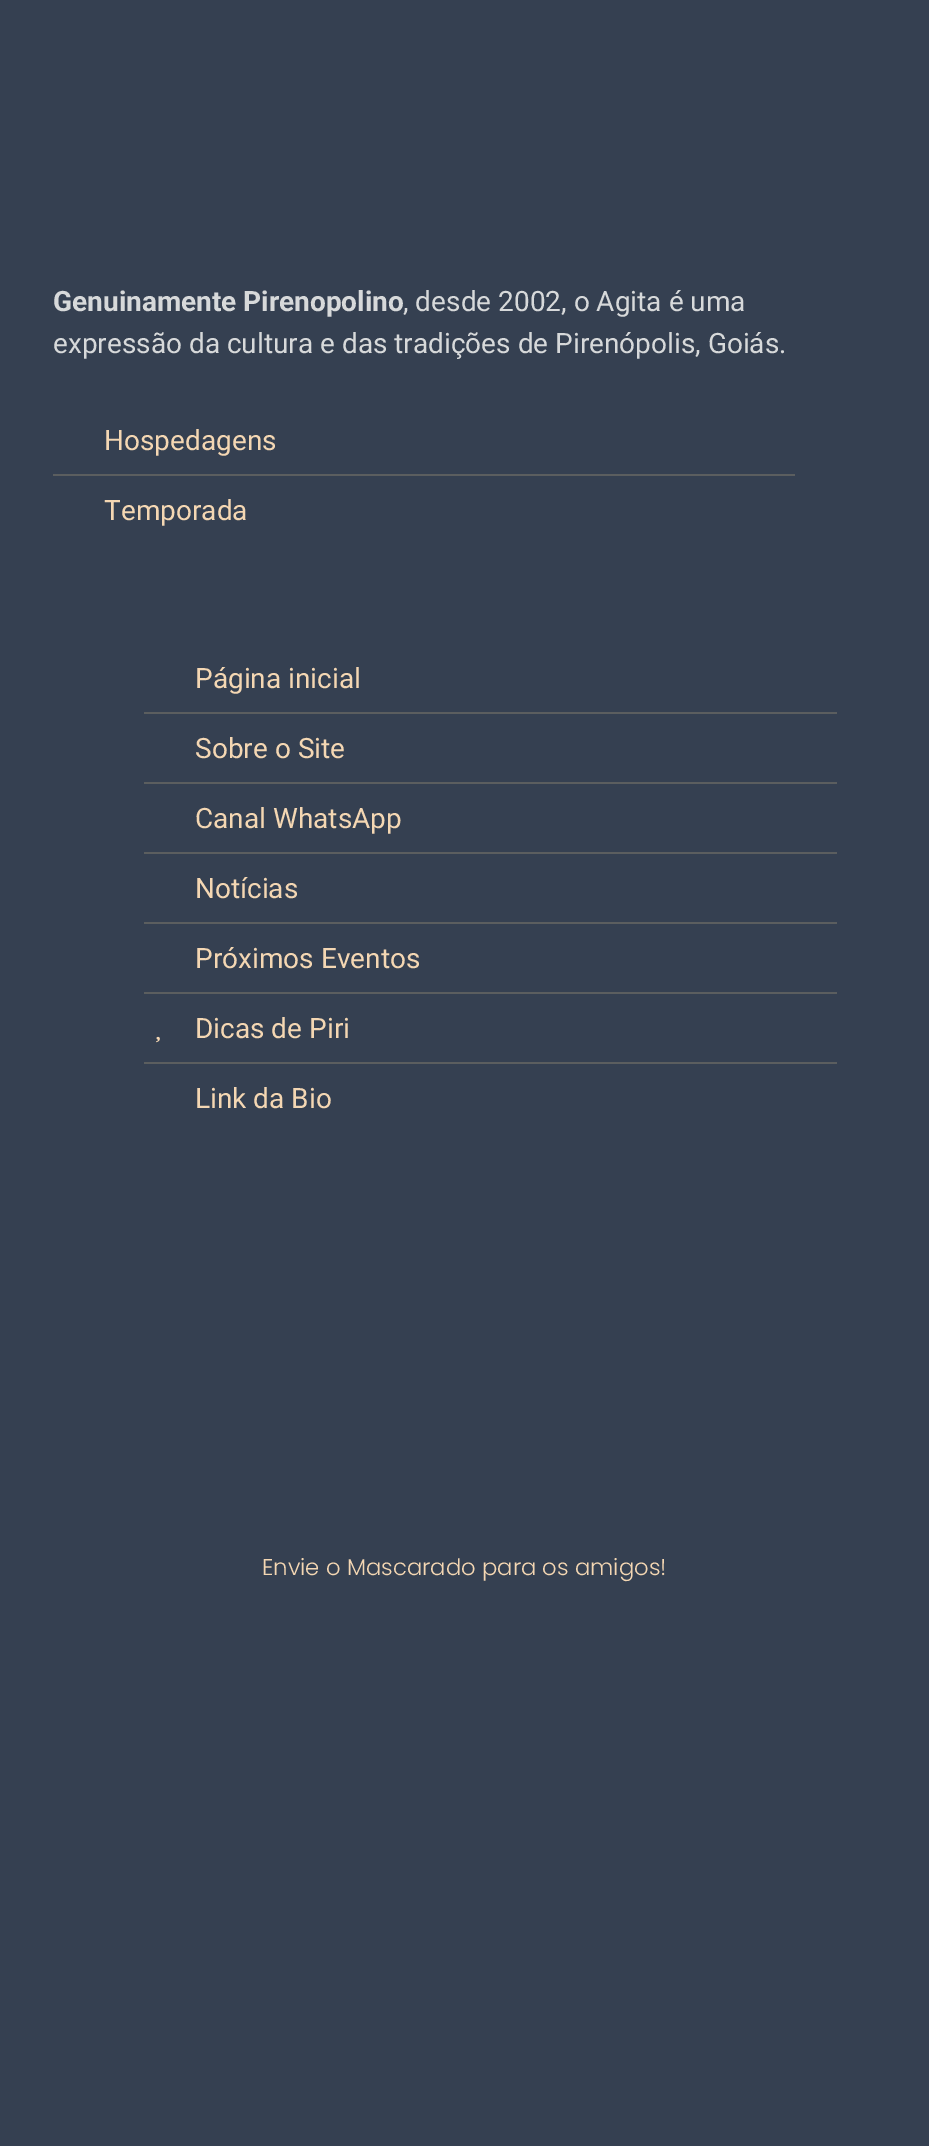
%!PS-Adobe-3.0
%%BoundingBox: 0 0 929 2146
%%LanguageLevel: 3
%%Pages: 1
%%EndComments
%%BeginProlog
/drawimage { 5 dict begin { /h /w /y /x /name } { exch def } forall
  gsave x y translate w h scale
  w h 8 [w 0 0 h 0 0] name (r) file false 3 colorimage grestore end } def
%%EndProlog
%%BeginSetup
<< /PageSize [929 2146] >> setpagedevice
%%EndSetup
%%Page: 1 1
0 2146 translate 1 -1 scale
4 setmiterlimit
0.208 0.251 0.318 setrgbcolor
0 0 929 2146 rectfill
0.357 0.369 0.373 setrgbcolor
53 474 742 2 rectfill
144 712 693 2 rectfill
144 782 693 2 rectfill
144 852 693 2 rectfill
144 922 693 2 rectfill
144 992 693 2 rectfill
(images/1.raw) 156 1036 4 7 drawimage
144 1062 693 2 rectfill
/Roboto-Bold [28 0 0 -28 0 0] selectfont
0.843 0.851 0.855 setrgbcolor
53 311 moveto (Genuinamente Pirenopolino) show
/Roboto-Regular [28 0 0 -28 0 0] selectfont
403 311 moveto (, desde 2002, o Agita é uma) show
53 353 moveto (expressão da cultura e das tradições de Pirenópolis, Goiás.) show
0.957 0.843 0.702 setrgbcolor
104 450 moveto (Hospedagens) show
104 520 moveto (Temporada) show
195 688 moveto (Página inicial) show
195 758 moveto (Sobre o Site) show
195 828 moveto (Canal WhatsApp) show
195 898 moveto (Notícias) show
195 968 moveto (Próximos Eventos) show
195 1038 moveto (Dicas de Piri) show
195 1108 moveto (Link da Bio) show
/Poppins-Light [22.75 0 0 -22.75 0 0] selectfont
262 1575 moveto (Envie o Mascarado para os amigos!) show
showpage
%%EOF
